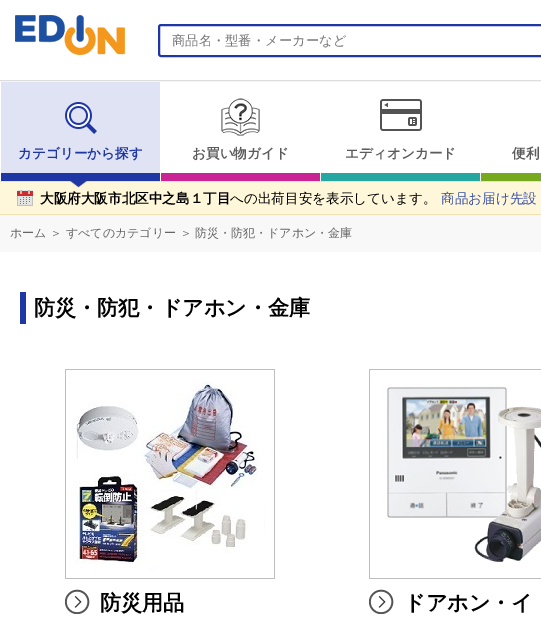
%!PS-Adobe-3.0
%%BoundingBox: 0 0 541 622
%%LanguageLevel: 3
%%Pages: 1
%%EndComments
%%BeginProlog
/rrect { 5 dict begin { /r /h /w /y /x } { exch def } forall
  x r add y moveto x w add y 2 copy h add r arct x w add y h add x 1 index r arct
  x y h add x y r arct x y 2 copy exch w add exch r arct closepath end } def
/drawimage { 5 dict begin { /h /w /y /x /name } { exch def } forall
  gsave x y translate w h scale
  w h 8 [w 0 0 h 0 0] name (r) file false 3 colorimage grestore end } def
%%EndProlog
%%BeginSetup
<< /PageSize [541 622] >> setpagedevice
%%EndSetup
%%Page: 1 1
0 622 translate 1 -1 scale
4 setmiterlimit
1 setgray
0 0 541 622 rectfill
0.867 setgray
0 80 541 1 rectfill
(images/1.raw) 15 15 110 40 drawimage
0.122 0.216 0.647 setrgbcolor
2 setlinewidth
159 25 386 31 2 rrect stroke
0.957 setgray
0 81 541 1 rectfill
0.878 0.89 0.957 setrgbcolor
1 82 159 91 rectfill
0.122 0.216 0.647 setrgbcolor
1 173 159 8 rectfill
(images/2.raw) 65 102 32 32 drawimage
0.792 0.141 0.58 setrgbcolor
161 173 159 8 rectfill
(images/3.raw) 221 98 39 38 drawimage
0.149 0.655 0.635 setrgbcolor
321 173 159 8 rectfill
(images/4.raw) 380 99 42 32 drawimage
0.463 0.663 0.118 setrgbcolor
481 173 60 8 rectfill
1 0.969 0.855 setrgbcolor
0 182 541 32 rectfill
0.941 0.882 0.702 setrgbcolor
0 181 541 1 rectfill
(images/5.raw) 69 181 19 7 drawimage
0 214 541 1 rectfill
(images/6.raw) 17 190 16 16 drawimage
0.973 setgray
0 215 541 37 rectfill
0.122 0.216 0.647 setrgbcolor
20 292 6 32 rectfill
(images/7.raw) 65 369 210 210 drawimage
(images/8.raw) 65 589 25 25 drawimage
(images/9.raw) 369 369 172 210 drawimage
(images/8.raw) 369 589 25 25 drawimage
/WenQuanYiZenHei-Medium [13.3 0 0 -13.3 0 0] selectfont
0.459 setgray
172 45 moveto (商品名・型番・メーカーなど) show
/WenQuanYiZenHei-Bold [13.6 0 0 -13.6 0 0] selectfont
0.122 0.216 0.647 setrgbcolor
18 158 moveto (カテゴリーから探す) show
0.361 setgray
192 158 moveto (お買い物ガイド) show
345 158 moveto (エディオンカード) show
512 158 moveto (便利) show
0 setgray
40 203 moveto (大阪府大阪市北区中之島１丁目) show
/WenQuanYiZenHei-Medium [13.6 0 0 -13.6 0 0] selectfont
230 203 moveto (への出荷目安を表示しています。) show
0.212 0.302 0.667 setrgbcolor
441 203 moveto (商品お届け先設) show
/WenQuanYiZenHei-Medium [12 0 0 -12 0 0] selectfont
0.4 setgray
10 237 moveto (ホーム ＞ すべてのカテゴリー ＞ 防災・防犯・ドアホン・金庫) show
/WenQuanYiZenHei-Bold [21.1 0 0 -21.1 0 0] selectfont
0 setgray
34 315 moveto (防災・防犯・ドアホン・金庫) show
100 610 moveto (防災用品) show
404 610 moveto (ドアホン・イ) show
showpage
%%EOF
